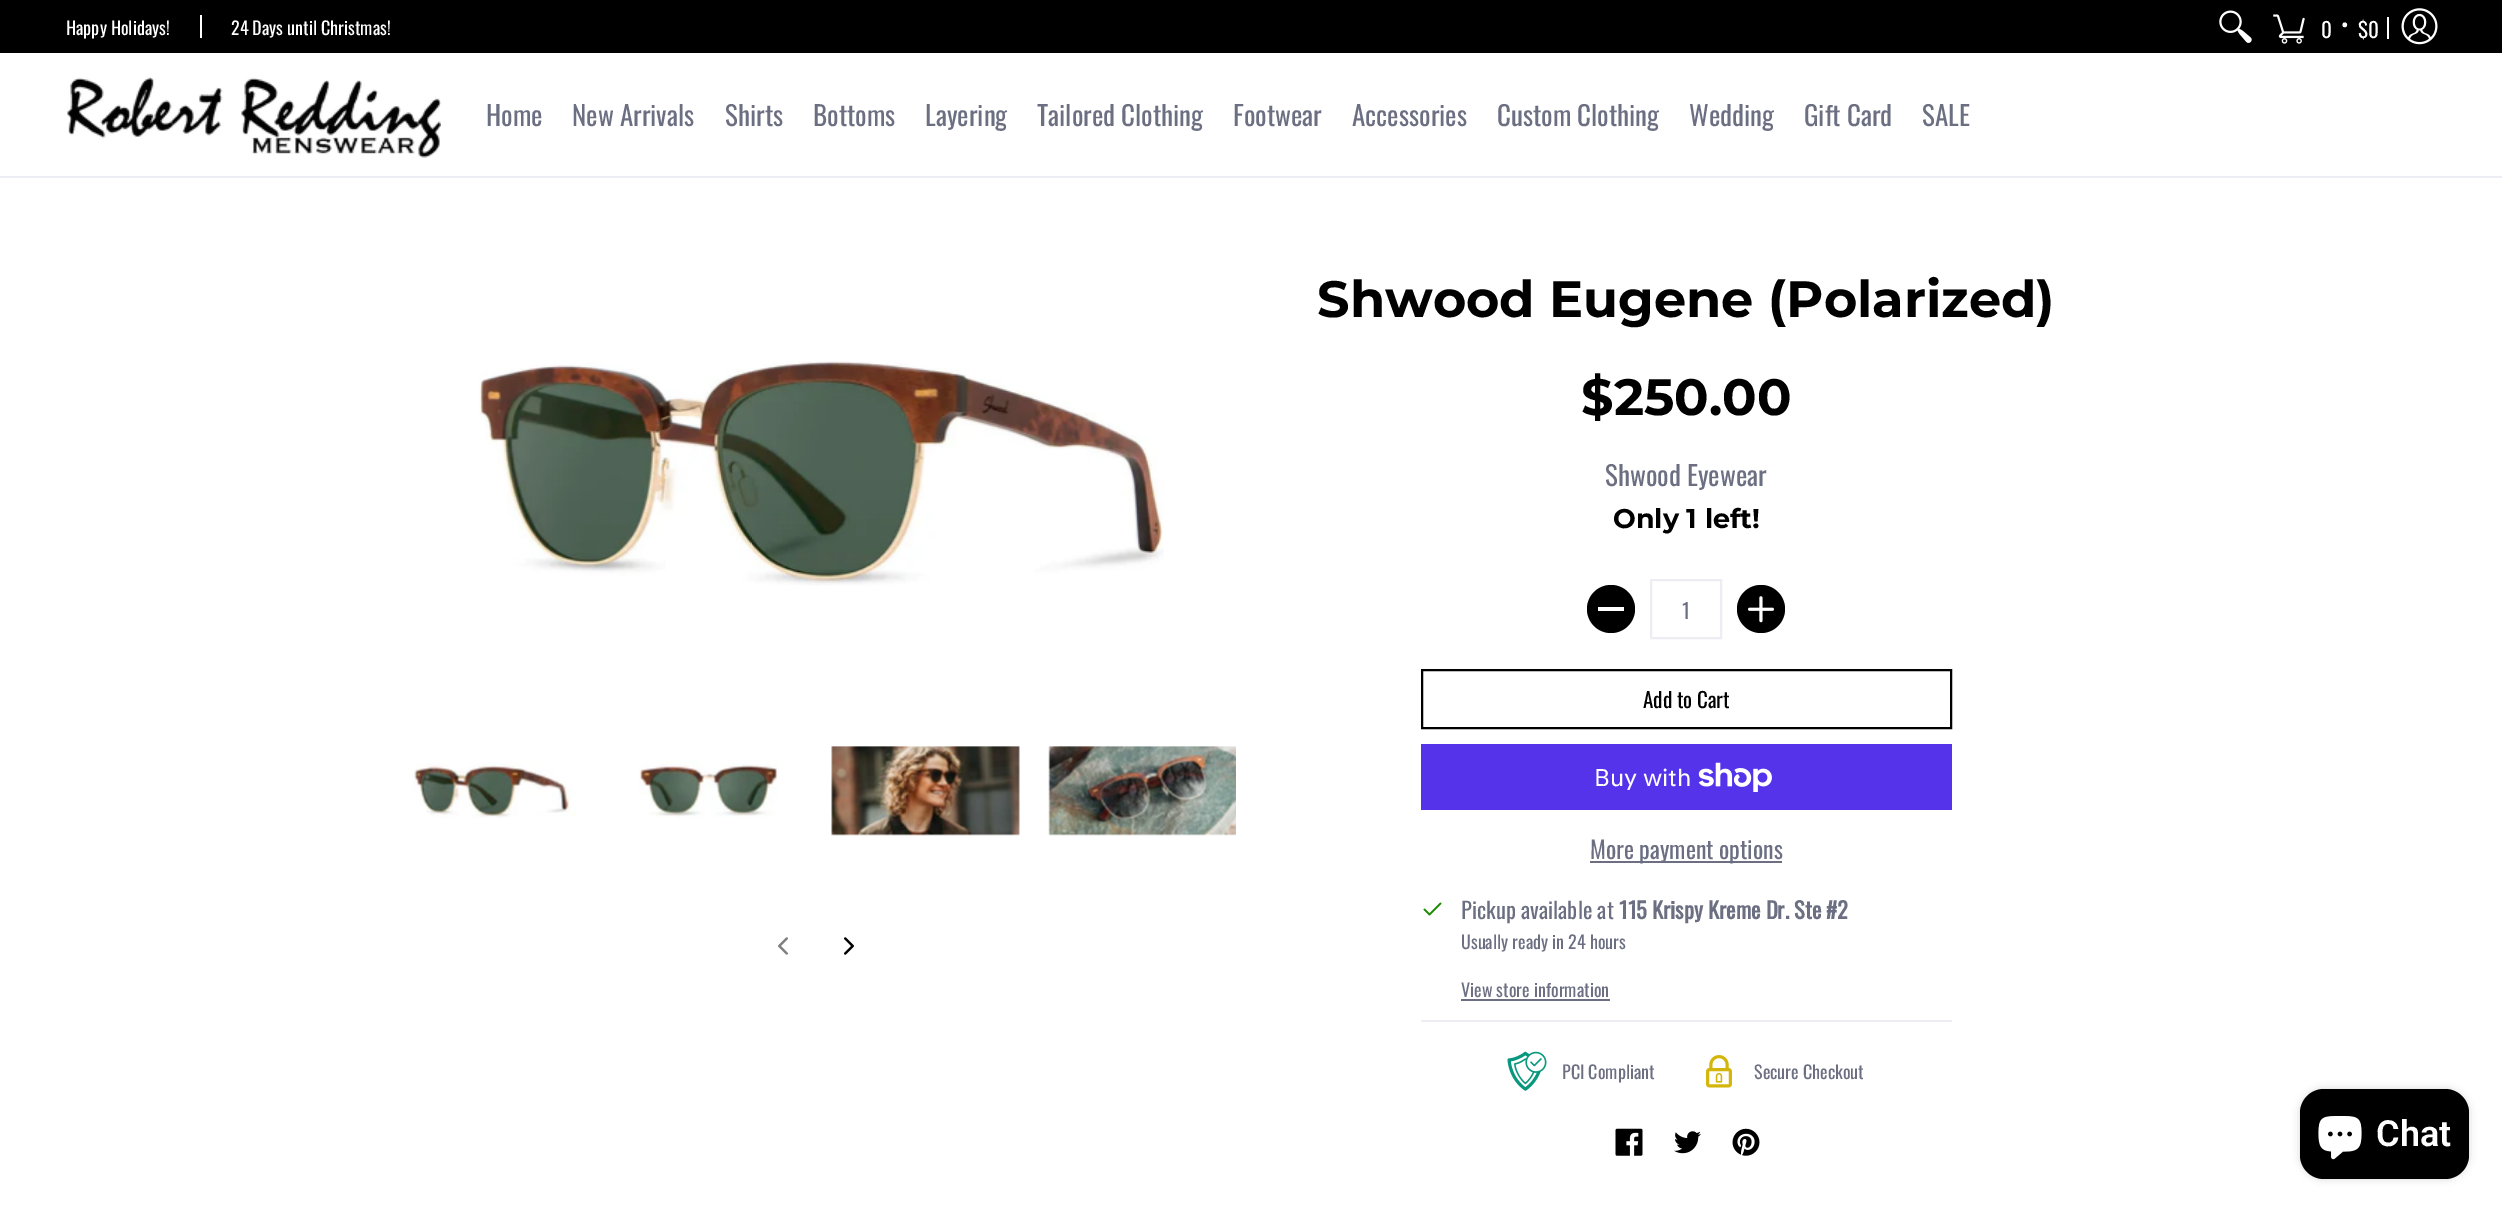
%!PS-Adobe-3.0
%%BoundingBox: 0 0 2502 1210
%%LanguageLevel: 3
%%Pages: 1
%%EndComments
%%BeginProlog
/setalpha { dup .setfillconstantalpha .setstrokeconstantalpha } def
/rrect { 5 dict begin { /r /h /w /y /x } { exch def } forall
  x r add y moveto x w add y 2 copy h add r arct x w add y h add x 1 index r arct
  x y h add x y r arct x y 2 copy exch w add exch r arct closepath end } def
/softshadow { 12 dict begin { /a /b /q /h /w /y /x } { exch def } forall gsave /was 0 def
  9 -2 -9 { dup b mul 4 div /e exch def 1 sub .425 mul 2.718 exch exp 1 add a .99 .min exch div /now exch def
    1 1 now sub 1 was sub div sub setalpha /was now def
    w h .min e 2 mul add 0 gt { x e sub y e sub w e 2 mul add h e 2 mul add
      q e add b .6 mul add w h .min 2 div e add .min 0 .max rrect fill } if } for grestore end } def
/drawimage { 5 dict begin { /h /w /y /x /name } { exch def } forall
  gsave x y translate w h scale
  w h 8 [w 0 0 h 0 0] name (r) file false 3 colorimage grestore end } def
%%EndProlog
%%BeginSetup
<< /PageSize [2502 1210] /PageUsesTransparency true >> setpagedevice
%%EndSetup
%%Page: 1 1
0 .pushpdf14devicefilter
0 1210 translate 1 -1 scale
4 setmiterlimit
1 setgray
0 0 2502 1210 rectfill
0 setgray
0 0 2502 53 rectfill
1 setgray
200 15 2 23 rectfill
(images/1.raw) 2219 10 33 33 drawimage
(images/2.raw) 2273 14 32 30 drawimage
2387 17 2 22 rectfill
(images/3.raw) 2401 8 37 37 drawimage
0.929 0.933 0.957 setrgbcolor
0 176 2502 2 rectfill
(images/4.raw) 67 77 374 81 drawimage
(images/5.raw) 479 361 685 225 drawimage
(images/6.raw) 412 762 164 56 drawimage
(images/7.raw) 639 760 139 58 drawimage
(images/8.raw) 831 746 189 90 drawimage
(images/9.raw) 1048 746 188 90 drawimage
(images/10.raw) 778 937 10 18 drawimage
(images/11.raw) 844 937 10 18 drawimage
0 setgray
newpath 1611 609 24 0 360 arc closepath fill
1 setgray
1598 607 26 4 rectfill
0.929 0.933 0.957 setrgbcolor
2 setlinewidth
1651 580 70 58 rectstroke
0 setgray
newpath 1761 609 24 0 360 arc closepath fill
(images/12.raw) 1748 596 26 27 drawimage
1422 670 529 58 rectstroke
0.329 0.2 0.922 setrgbcolor
1421 744 531 66 rectfill
(images/13.raw) 1698 762 74 30 drawimage
0.42 0.435 0.506 setrgbcolor
1590 861 192 2 rectfill
0.929 0.933 0.957 setrgbcolor
1421 1020 531 2 rectfill
(images/14.raw) 1423 902 19 14 drawimage
0.42 0.435 0.506 setrgbcolor
1461 999 149 2 rectfill
(images/15.raw) 1507 1051 40 40 drawimage
(images/16.raw) 1706 1055 26 33 drawimage
(images/17.raw) 1615 1128 28 28 drawimage
(images/18.raw) 1674 1131 27 23 drawimage
(images/19.raw) 1732 1128 28 28 drawimage
0 setgray
2300 1089 169 90 24 4 0.15 softshadow
2300 1089 169 90 24 rrect fill
(images/20.raw) 2318 1116 44 44 drawimage
/Oswald-Regular [18 0 0 -18 0 0] selectfont
1 setgray
66 35 moveto (Happy Holidays!) show
231 35 moveto (24 Days until Christmas!) show
/Oswald-Regular [21 0 0 -21 0 0] selectfont
2321 38 moveto (0) show
2341 33 moveto (•) show
2358 38 moveto ($0) show
/Oswald-Regular [27 0 0 -27 0 0] selectfont
0.42 0.435 0.506 setrgbcolor
486 126 moveto (Home) show
572 126 moveto (New Arrivals) show
725 126 moveto (Shirts) show
813 126 moveto (Bottoms) show
925 126 moveto (Layering) show
1037 126 moveto (Tailored Clothing) show
1233 126 moveto (Footwear) show
1352 126 moveto (Accessories) show
1497 126 moveto (Custom Clothing) show
1689 126 moveto (Wedding) show
1804 126 moveto (Gift Card) show
1922 126 moveto (SALE) show
/Montserrat-Bold [51 0 0 -51 0 0] selectfont
0 setgray
1317 317 moveto (Shwood Eugene \(Polarized\)) show
1581 415 moveto ($250.00) show
/Oswald-Regular [27 0 0 -27 0 0] selectfont
0.42 0.435 0.506 setrgbcolor
1605 486 moveto (Shwood Eyewear) show
/Montserrat-Bold [27 0 0 -27 0 0] selectfont
0 setgray
1613 528 moveto (Only 1 left!) show
/Oswald-Regular [21 0 0 -21 0 0] selectfont
0.42 0.435 0.506 setrgbcolor
1682 619 moveto (1) show
0 setgray
1643 708 moveto (Add to Cart) show
/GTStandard-Regular [24 0 0 -24 0 0] selectfont
1 setgray
1594 786 moveto (Buy with) show
/Oswald-Regular [24 0 0 -24 0 0] selectfont
0.42 0.435 0.506 setrgbcolor
1590 859 moveto (More payment options) show
/Oswald-Regular [22.5 0 0 -22.5 0 0] selectfont
1461 919 moveto (Pickup available at) show
/Oswald-Bold [22.5 0 0 -22.5 0 0] selectfont
1619 919 moveto (115 Krispy Kreme Dr. Ste #2) show
/Oswald-Regular [18 0 0 -18 0 0] selectfont
1461 949 moveto (Usually ready in 24 hours) show
1461 997 moveto (View store information) show
1562 1079 moveto (PCI Compliant) show
1754 1079 moveto (Secure Checkout) show
/Roboto-SemiBold [36 0 0 -36 0 0] selectfont
1 setgray
2376 1146 moveto (Chat) show
.poppdf14devicefilter showpage
%%EOF
